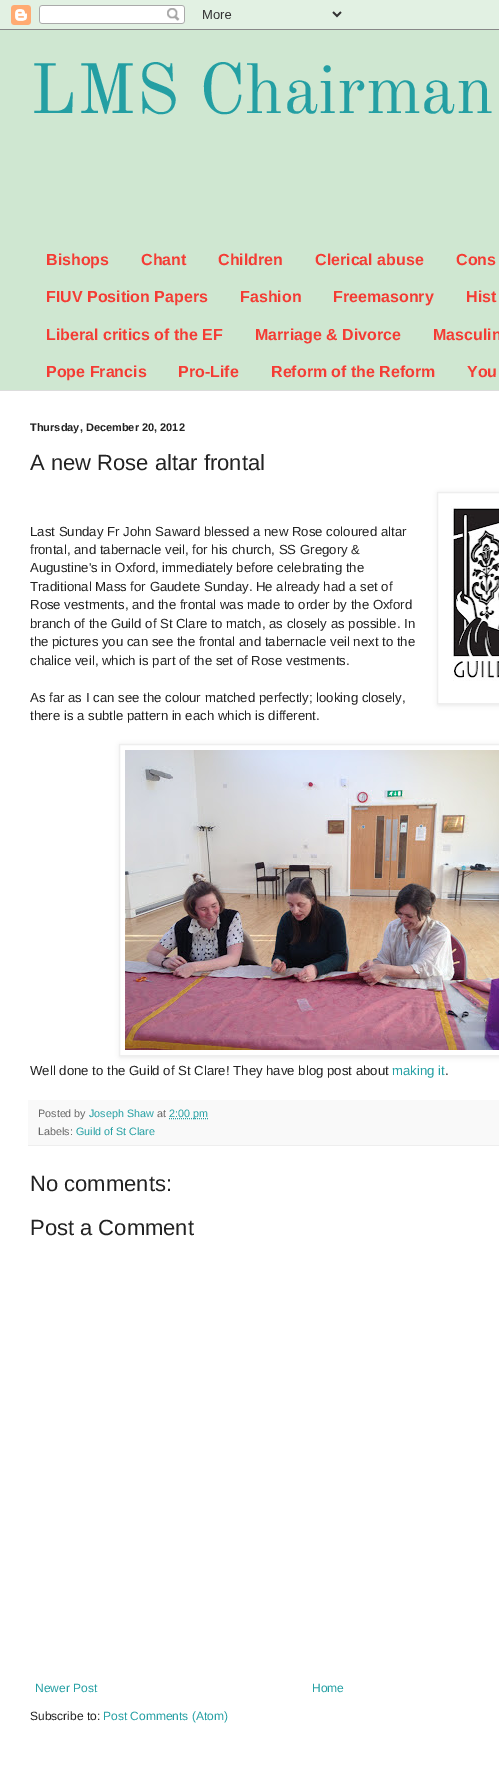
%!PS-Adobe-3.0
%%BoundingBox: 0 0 499 1772
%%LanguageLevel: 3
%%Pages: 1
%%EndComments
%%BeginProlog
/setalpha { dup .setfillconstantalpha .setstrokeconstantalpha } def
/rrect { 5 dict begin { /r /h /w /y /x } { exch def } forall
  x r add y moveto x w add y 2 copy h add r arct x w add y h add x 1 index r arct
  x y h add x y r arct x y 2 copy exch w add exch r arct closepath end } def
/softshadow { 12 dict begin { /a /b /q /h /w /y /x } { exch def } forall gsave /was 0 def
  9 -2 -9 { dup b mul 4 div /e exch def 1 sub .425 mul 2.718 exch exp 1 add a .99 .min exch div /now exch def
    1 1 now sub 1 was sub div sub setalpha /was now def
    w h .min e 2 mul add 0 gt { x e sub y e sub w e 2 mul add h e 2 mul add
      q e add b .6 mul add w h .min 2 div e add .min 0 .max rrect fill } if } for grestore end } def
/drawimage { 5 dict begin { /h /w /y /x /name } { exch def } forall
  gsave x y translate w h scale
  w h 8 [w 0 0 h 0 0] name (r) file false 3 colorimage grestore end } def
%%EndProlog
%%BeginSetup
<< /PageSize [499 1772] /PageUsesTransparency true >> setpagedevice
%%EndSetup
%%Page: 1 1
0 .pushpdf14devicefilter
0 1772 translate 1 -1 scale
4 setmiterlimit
0.812 0.906 0.82 setrgbcolor
0 0 499 1772 rectfill
(images/1.raw) 0 0 499 30 drawimage
1 setgray
0 391 499 1381 rectfill
0.867 setgray
0 390 499 1 rectfill
gsave
newpath 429 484 moveto 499 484 lineto 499 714 lineto 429 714 lineto closepath 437 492 moveto 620 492 lineto 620 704 lineto 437 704 lineto closepath eoclip newpath
0 setgray
438 493 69 212 0 2.5 0.1 softshadow
grestore
0.933 setgray
437.5 492.5 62 211 rectstroke
(images/2.raw) 451 506 48 175 drawimage
gsave
newpath 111 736 moveto 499 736 lineto 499 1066 lineto 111 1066 lineto closepath 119 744 moveto 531 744 lineto 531 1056 lineto 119 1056 lineto closepath eoclip newpath
0 setgray
120 745 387 312 0 2.5 0.1 softshadow
grestore
119.5 744.5 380 311 rectstroke
(images/3.raw) 125 750 374 300 drawimage
0.976 setgray
28 1100 471 45 rectfill
0.933 setgray
28 1145 471 1 rectfill
0.141 0.624 0.639 setrgbcolor
[1 1] 0 setdash
newpath 169 1118.5 moveto 208 1118.5 lineto stroke
/OldStandardTT-Regular [70 0 0 -70 0 0] selectfont
30 113 moveto (LMS Chairman) show
/LiberationSans-Bold [16 0 0 -16 0 0] selectfont
0.957 0.235 0.204 setrgbcolor
46 265 moveto (Bishops) show
141 265 moveto (Chant) show
218 265 moveto (Children) show
315 265 moveto (Clerical abuse) show
456 265 moveto (Cons) show
46 302 moveto (FIUV Position Papers) show
240 302 moveto (Fashion) show
333 302 moveto (Freemasonry) show
466 302 moveto (Hist) show
46 340 moveto (Liberal critics of the EF) show
255 340 moveto (Marriage & Divorce) show
433 340 moveto (Masculin) show
46 377 moveto (Pope Francis) show
178 377 moveto (Pro-Life) show
271 377 moveto (Reform of the Reform) show
467 377 moveto (You) show
/LiberationSans-Bold [11 0 0 -11 0 0] selectfont
0.133 setgray
30 431 moveto (Thursday, December 20, 2012) show
/LiberationSans-Regular [22 0 0 -22 0 0] selectfont
30 470 moveto (A new Rose altar frontal) show
/LiberationSans-Regular [13.2 0 0 -13.2 0 0] selectfont
30 536 moveto (Last Sunday Fr John Saward blessed a new Rose coloured altar) show
30 554 moveto (frontal, and tabernacle veil, for his church, SS Gregory &) show
30 572 moveto (Augustine's in Oxford, immediately before celebrating the) show
30 591 moveto (Traditional Mass for Gaudete Sunday. He already had a set of) show
30 609 moveto (Rose vestments, and the frontal was made to order by the Oxford) show
30 628 moveto (branch of the Guild of St Clare to match, as closely as possible. In) show
30 646 moveto (the pictures you can see the frontal and tabernacle veil next to the) show
30 665 moveto (chalice veil, which is part of the set of Rose vestments.) show
30 702 moveto (As far as I can see the colour matched perfectly; looking closely,) show
30 720 moveto (there is a subtle pattern in each which is different.) show
30 1075 moveto (Well done to the Guild of St Clare! They have blog post about) show
0.141 0.624 0.639 setrgbcolor
392 1075 moveto (making it) show
0.133 setgray
445 1075 moveto (.) show
/LiberationSans-Regular [10.75 0 0 -10.75 0 0] selectfont
0.4 setgray
38 1117 moveto (Posted by) show
0.141 0.624 0.639 setrgbcolor
89 1117 moveto (Joseph Shaw) show
0.4 setgray
157 1117 moveto (at) show
0.141 0.624 0.639 setrgbcolor
169 1117 moveto (2:00 pm) show
0.4 setgray
38 1135 moveto (Labels:) show
0.141 0.624 0.639 setrgbcolor
76 1135 moveto (Guild of St Clare) show
/LiberationSans-Regular [22 0 0 -22 0 0] selectfont
0.133 setgray
30 1191 moveto (No comments:) show
30 1235 moveto (Post a Comment) show
/LiberationSans-Regular [12 0 0 -12 0 0] selectfont
0.141 0.624 0.639 setrgbcolor
35 1692 moveto (Newer Post) show
312 1692 moveto (Home) show
0.133 setgray
30 1720 moveto (Subscribe to:) show
0.141 0.624 0.639 setrgbcolor
103 1720 moveto (Post Comments \(Atom\)) show
.poppdf14devicefilter showpage
%%EOF
